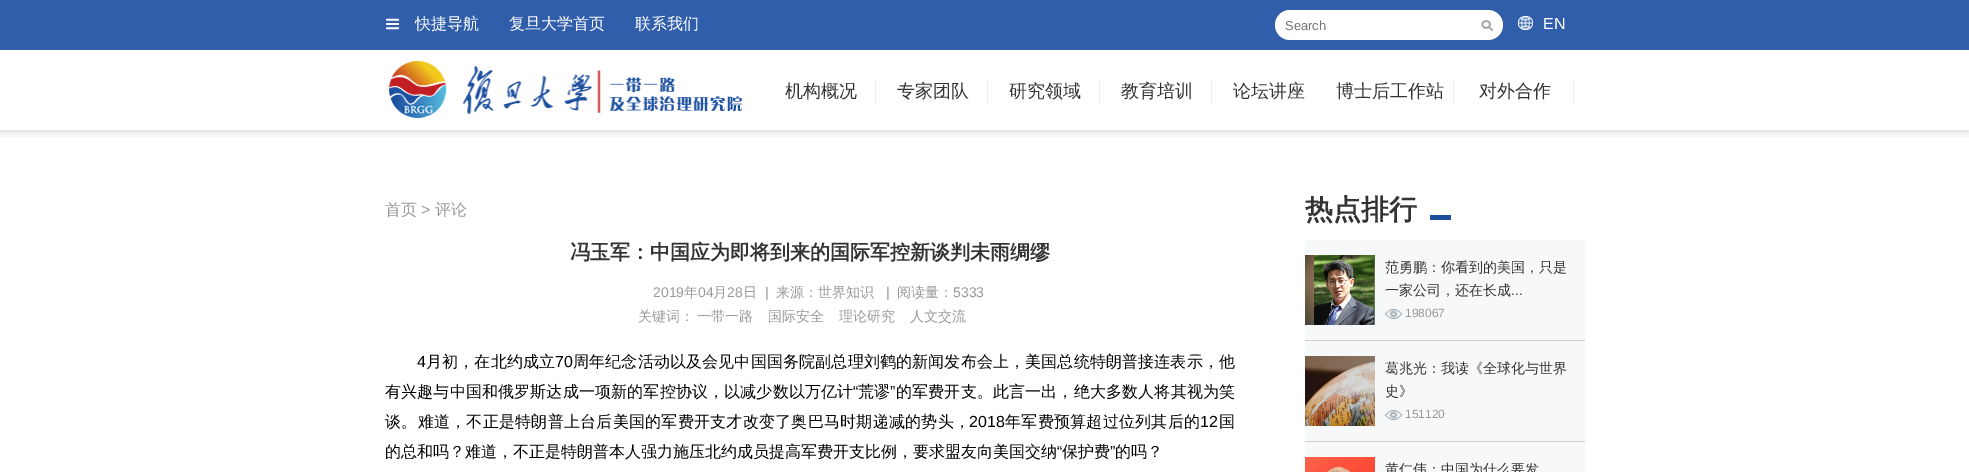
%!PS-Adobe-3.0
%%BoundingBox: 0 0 1969 472
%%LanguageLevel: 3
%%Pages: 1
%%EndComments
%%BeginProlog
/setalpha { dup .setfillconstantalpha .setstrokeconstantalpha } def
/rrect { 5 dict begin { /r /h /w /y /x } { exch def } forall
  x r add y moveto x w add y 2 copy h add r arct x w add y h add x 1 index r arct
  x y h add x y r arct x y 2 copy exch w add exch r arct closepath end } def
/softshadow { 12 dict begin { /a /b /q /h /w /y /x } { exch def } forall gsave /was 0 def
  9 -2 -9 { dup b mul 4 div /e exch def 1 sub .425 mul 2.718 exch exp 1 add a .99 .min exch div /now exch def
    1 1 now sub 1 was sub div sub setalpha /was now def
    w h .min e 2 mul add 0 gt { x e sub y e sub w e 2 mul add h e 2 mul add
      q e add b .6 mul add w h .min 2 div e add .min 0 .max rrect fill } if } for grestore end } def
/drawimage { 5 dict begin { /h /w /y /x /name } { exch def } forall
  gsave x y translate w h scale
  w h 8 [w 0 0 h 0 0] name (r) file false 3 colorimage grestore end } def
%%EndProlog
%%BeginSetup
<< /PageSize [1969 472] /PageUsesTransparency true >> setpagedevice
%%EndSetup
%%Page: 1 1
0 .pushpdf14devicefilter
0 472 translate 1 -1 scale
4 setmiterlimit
1 setgray
0 0 1969 472 rectfill
gsave
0 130 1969 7 rectclip
0 setgray
0 0 1969 130 0 5.5 0.22 softshadow
grestore
0.192 0.369 0.667 setrgbcolor
0 0 1969 50 rectfill
(images/1.raw) 385 18 14 12 drawimage
1 setgray
1275 10 228 30 15 rrect fill
(images/2.raw) 1481 20 12 11 drawimage
(images/3.raw) 1518 15 15 16 drawimage
(images/4.raw) 389 61 353 57 drawimage
0.925 setgray
875 80 1 24 rectfill
987 80 1 24 rectfill
1099 80 1 24 rectfill
1211 80 1 24 rectfill
1453 80 1 24 rectfill
1573 80 1 24 rectfill
0.114 0.31 0.624 setrgbcolor
1430 215 21 5 rectfill
0.965 0.973 0.976 setrgbcolor
1305 240 280 232 rectfill
0.8 setgray
1305 340 280 1 rectfill
(images/5.raw) 1305 255 70 70 drawimage
(images/6.raw) 1385 309 17 10 drawimage
1305 441 280 1 rectfill
(images/7.raw) 1305 356 70 70 drawimage
(images/6.raw) 1385 410 17 10 drawimage
(images/8.raw) 1305 457 70 15 drawimage
/WenQuanYiZenHei-Medium [16 0 0 -16 0 0] selectfont
1 setgray
415 29 moveto (快捷导航) show
509 29 moveto (复旦大学首页) show
635 29 moveto (联系我们) show
/LiberationSans-Regular [13 0 0 -13 0 0] selectfont
0.459 setgray
1285 30 moveto (Search) show
/LiberationSans-Regular [16 0 0 -16 0 0] selectfont
1 setgray
1543 29 moveto (EN) show
/WenQuanYiZenHei-Medium [18 0 0 -18 0 0] selectfont
0.2 setgray
785 97 moveto (机构概况) show
897 97 moveto (专家团队) show
1009 97 moveto (研究领域) show
1121 97 moveto (教育培训) show
1233 97 moveto (论坛讲座) show
1336 97 moveto (博士后工作站) show
1479 97 moveto (对外合作) show
/WenQuanYiZenHei-Medium [16 0 0 -16 0 0] selectfont
0.6 setgray
385 215 moveto (首页) show
/LiberationSans-Regular [16 0 0 -16 0 0] selectfont
421 215 moveto (>) show
/WenQuanYiZenHei-Medium [16 0 0 -16 0 0] selectfont
435 215 moveto (评论) show
/WenQuanYiZenHei-Bold [20 0 0 -20 0 0] selectfont
0.2 setgray
570 259 moveto (冯玉军：中国应为即将到来的国际军控新谈判未雨绸缪) show
/LiberationSans-Regular [14 0 0 -14 0 0] selectfont
0.6 setgray
653 297 moveto (2019) show
/WenQuanYiZenHei-Medium [14 0 0 -14 0 0] selectfont
684 297 moveto (年) show
/LiberationSans-Regular [14 0 0 -14 0 0] selectfont
698 297 moveto (04) show
/WenQuanYiZenHei-Medium [14 0 0 -14 0 0] selectfont
713 297 moveto (月) show
/LiberationSans-Regular [14 0 0 -14 0 0] selectfont
727 297 moveto (28) show
/WenQuanYiZenHei-Medium [14 0 0 -14 0 0] selectfont
743 297 moveto (日) show
/LiberationSans-Regular [14 0 0 -14 0 0] selectfont
765 297 moveto (|) show
/WenQuanYiZenHei-Medium [14 0 0 -14 0 0] selectfont
776 297 moveto (来源：世界知识) show
/LiberationSans-Regular [14 0 0 -14 0 0] selectfont
886 297 moveto (|) show
/WenQuanYiZenHei-Medium [14 0 0 -14 0 0] selectfont
897 297 moveto (阅读量：) show
/LiberationSans-Regular [14 0 0 -14 0 0] selectfont
953 297 moveto (5333) show
/WenQuanYiZenHei-Medium [14 0 0 -14 0 0] selectfont
638 321 moveto (关键词：) show
697 321 moveto (一带一路) show
768 321 moveto (国际安全) show
839 321 moveto (理论研究) show
910 321 moveto (人文交流) show
/LiberationSans-Regular [16 0 0 -16 0 0] selectfont
0 setgray
417 367 moveto 0.15 0 (4) ashow
/WenQuanYiZenHei-Medium [16 0 0 -16 0 0] selectfont
426 367 moveto 0.15 0 (月初，在北约成立) ashow
/LiberationSans-Regular [16 0 0 -16 0 0] selectfont
555 367 moveto 0.15 0 (70) ashow
/WenQuanYiZenHei-Medium [16 0 0 -16 0 0] selectfont
573 367 moveto 0.15 0 (周年纪念活动以及会见中国国务院副总理刘鹤的新闻发布会上，美国总统特朗普接连表示，他) ashow
385 397 moveto 0.15 0 (有兴趣与中国和俄罗斯达成一项新的军控协议，以减少数以万亿计) ashow
/LiberationSans-Regular [16 0 0 -16 0 0] selectfont
853 397 moveto 0.15 0 (“) ashow
/WenQuanYiZenHei-Medium [16 0 0 -16 0 0] selectfont
858 397 moveto 0.15 0 (荒谬) ashow
/LiberationSans-Regular [16 0 0 -16 0 0] selectfont
890 397 moveto 0.15 0 (”) ashow
/WenQuanYiZenHei-Medium [16 0 0 -16 0 0] selectfont
896 397 moveto 0.15 0 (的军费开支。此言一出，绝大多数人将其视为笑) ashow
385 427 moveto 0.25 0 (谈。难道，不正是特朗普上台后美国的军费开支才改变了奥巴马时期递减的势头，) ashow
/LiberationSans-Regular [16 0 0 -16 0 0] selectfont
969 427 moveto 0.25 0 (2018) ashow
/WenQuanYiZenHei-Medium [16 0 0 -16 0 0] selectfont
1005 427 moveto 0.25 0 (年军费预算超过位列其后的) ashow
/LiberationSans-Regular [16 0 0 -16 0 0] selectfont
1200 427 moveto 0.25 0 (12) ashow
/WenQuanYiZenHei-Medium [16 0 0 -16 0 0] selectfont
1219 427 moveto 0.25 0 (国) ashow
385 457 moveto (的总和吗？难道，不正是特朗普本人强力施压北约成员提高军费开支比例，要求盟友向美国交纳) show
/LiberationSans-Regular [16 0 0 -16 0 0] selectfont
1057 457 moveto (“) show
/WenQuanYiZenHei-Medium [16 0 0 -16 0 0] selectfont
1062 457 moveto (保护费) show
/LiberationSans-Regular [16 0 0 -16 0 0] selectfont
1110 457 moveto (”) show
/WenQuanYiZenHei-Medium [16 0 0 -16 0 0] selectfont
1115 457 moveto (的吗？) show
/WenQuanYiZenHei-Bold [28 0 0 -28 0 0] selectfont
0.2 setgray
1305 219 moveto (热点排行) show
/WenQuanYiZenHei-Medium [14 0 0 -14 0 0] selectfont
1385 272 moveto (范勇鹏：你看到的美国，只是) show
1385 295 moveto (一家公司，还在长成) show
/LiberationSans-Regular [14 0 0 -14 0 0] selectfont
1511 295 moveto (...) show
/LiberationSans-Regular [12 0 0 -12 0 0] selectfont
0.6 setgray
1405 317 moveto (198067) show
/WenQuanYiZenHei-Medium [14 0 0 -14 0 0] selectfont
0.2 setgray
1385 373 moveto (葛兆光：我读《全球化与世界) show
1385 396 moveto (史》) show
/LiberationSans-Regular [12 0 0 -12 0 0] selectfont
0.6 setgray
1405 418 moveto (151120) show
/WenQuanYiZenHei-Medium [14 0 0 -14 0 0] selectfont
0.2 setgray
1385 474 moveto (黄仁伟：中国为什么要发) show
.poppdf14devicefilter showpage
%%EOF
